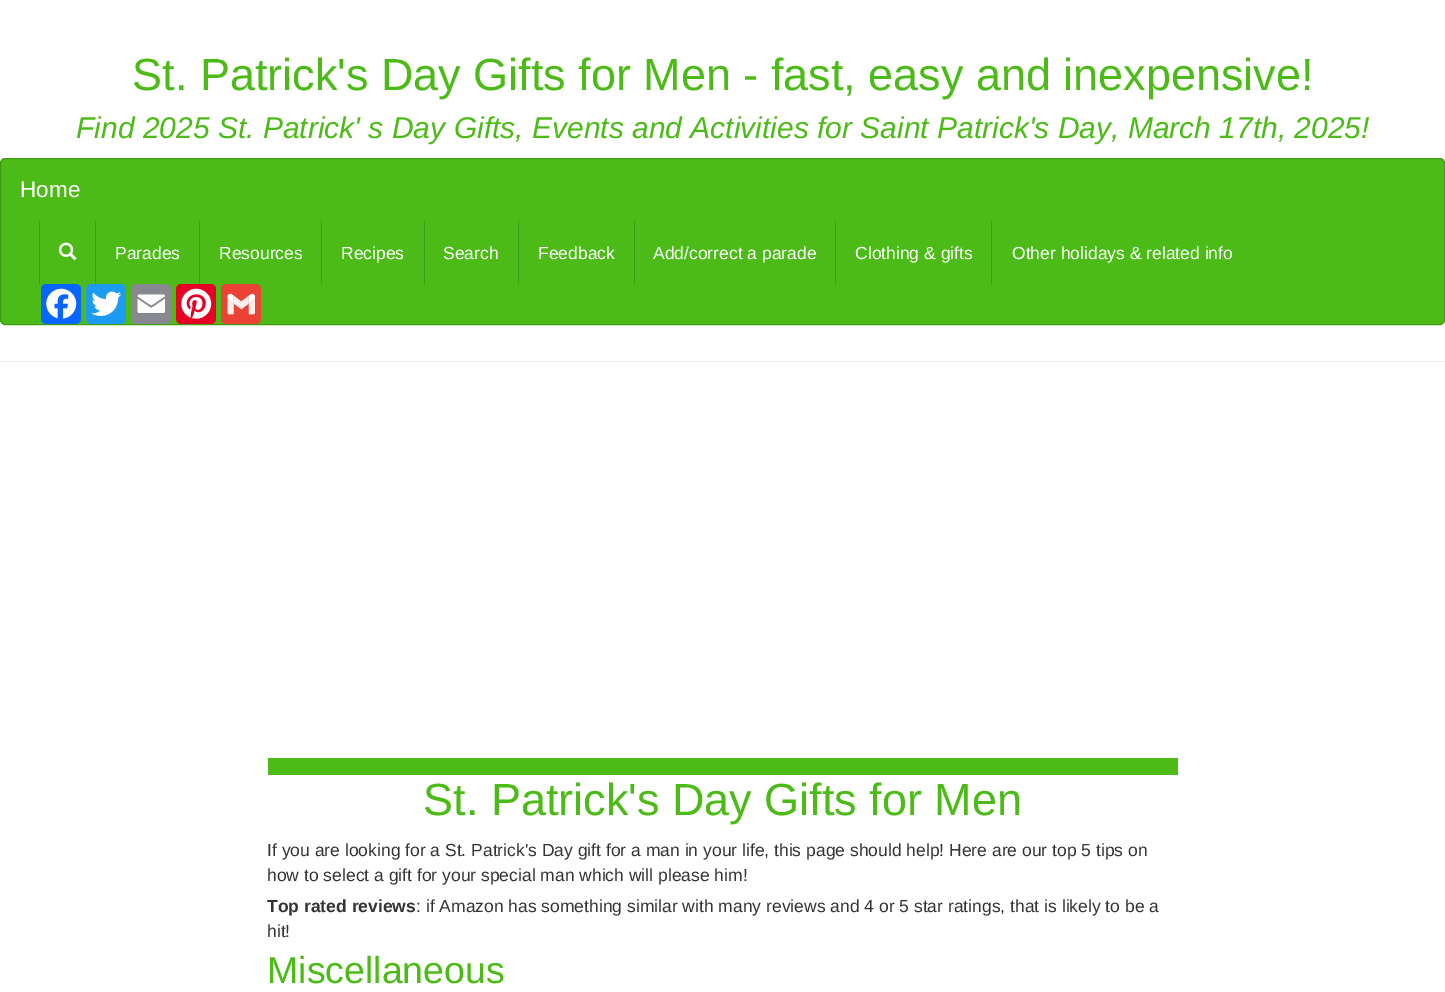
%!PS-Adobe-3.0
%%BoundingBox: 0 0 1445 992
%%LanguageLevel: 3
%%Pages: 1
%%EndComments
%%BeginProlog
/rrect { 5 dict begin { /r /h /w /y /x } { exch def } forall
  x r add y moveto x w add y 2 copy h add r arct x w add y h add x 1 index r arct
  x y h add x y r arct x y 2 copy exch w add exch r arct closepath end } def
/drawimage { 5 dict begin { /h /w /y /x /name } { exch def } forall
  gsave x y translate w h scale
  w h 8 [w 0 0 h 0 0] name (r) file false 3 colorimage grestore end } def
%%EndProlog
%%BeginSetup
<< /PageSize [1445 992] >> setpagedevice
%%EndSetup
%%Page: 1 1
0 992 translate 1 -1 scale
4 setmiterlimit
1 setgray
0 0 1445 992 rectfill
0.933 setgray
0 361 1445 1 rectfill
0.298 0.733 0.09 setrgbcolor
0.5 158.5 1444 166 4.5 rrect gsave fill grestore
0.251 0.616 0.075 setrgbcolor
stroke
39 221 1 63 rectfill
(images/1.raw) 58 242 19 19 drawimage
95 221 1 63 rectfill
199 221 1 63 rectfill
321 221 1 63 rectfill
424 221 1 63 rectfill
518 221 1 63 rectfill
634 221 1 63 rectfill
835 221 1 63 rectfill
991 221 1 63 rectfill
0.031 0.4 1 setrgbcolor
41 284 40 40 5 rrect fill
(images/2.raw) 46 288 31 31 drawimage
0.114 0.608 0.941 setrgbcolor
86 284 40 40 5 rrect fill
(images/3.raw) 91 291 31 25 drawimage
0.533 0.537 0.565 setrgbcolor
131 284 40 40 5 rrect fill
(images/4.raw) 137 294 28 19 drawimage
0.902 0 0.137 setrgbcolor
176 284 40 40 5 rrect fill
(images/5.raw) 181 288 31 31 drawimage
0.918 0.263 0.208 setrgbcolor
221 284 40 40 5 rrect fill
(images/6.raw) 227 293 28 22 drawimage
0.298 0.733 0.09 setrgbcolor
268 758 910 17 rectfill
/LiberationSans-Regular [45 0 0 -45 0 0] selectfont
132 90 moveto (St. Patrick's Day Gifts for Men - fast, easy and inexpensive!) show
/LiberationSans-Italic [30 0 0 -30 0 0] selectfont
76 138 moveto (Find 2025 St. Patrick' s Day Gifts, Events and Activities for Saint Patrick's Day, March 17th, 2025!) show
/LiberationSans-Regular [22.5 0 0 -22.5 0 0] selectfont
1 setgray
20 197 moveto (Home) show
/LiberationSans-Regular [17.5 0 0 -17.5 0 0] selectfont
115 259 moveto (Parades) show
219 259 moveto (Resources) show
341 259 moveto (Recipes) show
443 259 moveto (Search) show
538 259 moveto (Feedback) show
653 259 moveto (Add/correct a parade) show
855 259 moveto (Clothing & gifts) show
1012 259 moveto (Other holidays & related info) show
/LiberationSans-Regular [45 0 0 -45 0 0] selectfont
0.298 0.733 0.09 setrgbcolor
423 815 moveto (St. Patrick's Day Gifts for Men) show
/LiberationSans-Regular [17.5 0 0 -17.5 0 0] selectfont
0.2 setgray
267 856 moveto (If you are looking for a St. Patrick's Day gift for a man in your life, this page should help! Here are our top 5 tips on) show
267 881 moveto (how to select a gift for your special man which will please him!) show
/LiberationSans-Bold [17.5 0 0 -17.5 0 0] selectfont
267 912 moveto (Top rated reviews) show
/LiberationSans-Regular [17.5 0 0 -17.5 0 0] selectfont
416 912 moveto (: if Amazon has something similar with many reviews and 4 or 5 star ratings, that is likely to be a) show
267 937 moveto (hit!) show
/LiberationSans-Regular [37.5 0 0 -37.5 0 0] selectfont
0.298 0.733 0.09 setrgbcolor
267 983 moveto (Miscellaneous) show
showpage
%%EOF
